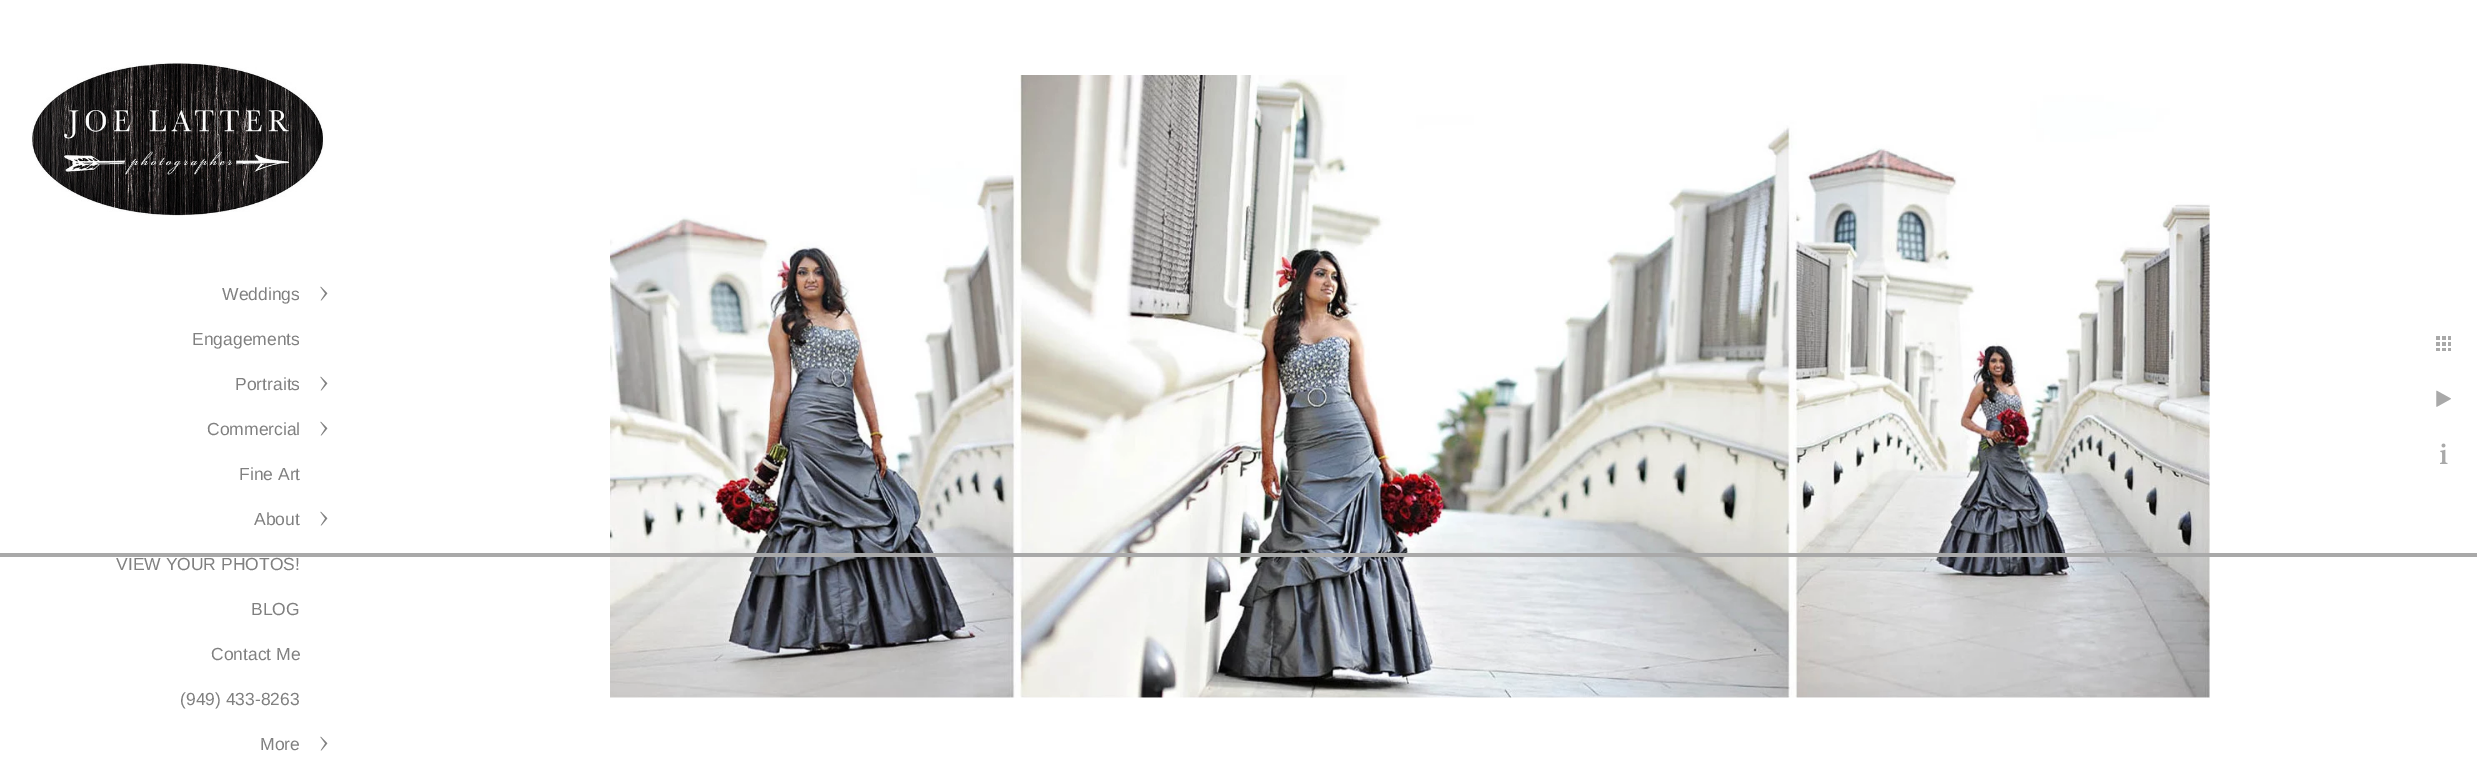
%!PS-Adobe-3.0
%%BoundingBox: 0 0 2477 772
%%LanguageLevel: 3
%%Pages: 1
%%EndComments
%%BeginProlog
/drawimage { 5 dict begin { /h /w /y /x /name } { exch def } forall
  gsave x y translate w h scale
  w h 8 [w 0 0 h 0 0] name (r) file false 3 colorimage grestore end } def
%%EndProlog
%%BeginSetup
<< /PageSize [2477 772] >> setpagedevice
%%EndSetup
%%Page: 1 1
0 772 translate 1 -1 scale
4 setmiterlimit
1 setgray
0 0 2477 772 rectfill
(images/1.raw) 31 62 294 154 drawimage
(images/2.raw) 320 286 8 15 drawimage
(images/2.raw) 320 376 8 15 drawimage
(images/2.raw) 320 421 8 15 drawimage
(images/2.raw) 320 511 8 15 drawimage
(images/2.raw) 320 736 8 15 drawimage
(images/3.raw) 610 75 1600 623 drawimage
(images/4.raw) 2436 336 15 15 drawimage
(images/5.raw) 2436 390 15 17 drawimage
(images/6.raw) 2440 443 8 21 drawimage
0.663 setgray
0 553 2477 4 rectfill
/LiberationSans-Regular [17.5 0 0 -17.5 0 0] selectfont
0.502 setgray
222 300 moveto (Weddings) show
192 345 moveto (Engagements) show
235 390 moveto (Portraits) show
207 435 moveto (Commercial) show
239 480 moveto (Fine Art) show
254 525 moveto (About) show
116 570 moveto (VIEW YOUR PHOTOS!) show
251 615 moveto (BLOG) show
211 660 moveto (Contact Me) show
180 705 moveto (\(949\) 433-8263) show
260 750 moveto (More) show
showpage
%%EOF
